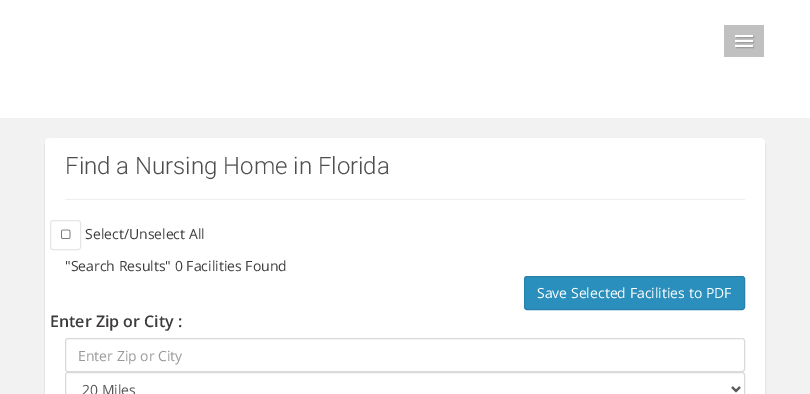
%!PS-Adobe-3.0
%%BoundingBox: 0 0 810 394
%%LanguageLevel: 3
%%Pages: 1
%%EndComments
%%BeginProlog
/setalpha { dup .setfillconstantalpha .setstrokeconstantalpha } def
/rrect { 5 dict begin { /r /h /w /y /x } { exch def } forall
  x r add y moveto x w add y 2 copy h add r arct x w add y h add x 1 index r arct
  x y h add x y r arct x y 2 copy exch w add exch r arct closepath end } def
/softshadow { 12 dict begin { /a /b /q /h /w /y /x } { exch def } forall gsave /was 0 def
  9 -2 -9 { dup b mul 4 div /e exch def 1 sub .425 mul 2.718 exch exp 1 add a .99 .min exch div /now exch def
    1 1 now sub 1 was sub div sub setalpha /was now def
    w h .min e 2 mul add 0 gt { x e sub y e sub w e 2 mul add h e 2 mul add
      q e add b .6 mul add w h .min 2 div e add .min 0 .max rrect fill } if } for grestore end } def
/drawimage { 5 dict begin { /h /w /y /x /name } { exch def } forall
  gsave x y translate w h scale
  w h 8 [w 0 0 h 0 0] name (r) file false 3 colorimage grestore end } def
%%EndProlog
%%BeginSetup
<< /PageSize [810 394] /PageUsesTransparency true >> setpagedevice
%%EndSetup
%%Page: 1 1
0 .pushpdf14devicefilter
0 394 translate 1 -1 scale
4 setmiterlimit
0.949 setgray
0 0 810 394 rectfill
1 setgray
0 0 810 118 rectfill
0.753 setgray
724 25 40 32 rectfill
(images/1.raw) 735 35 20 14 drawimage
0 setgray
45 140 720 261 5 0.5 0.2 softshadow
1 setgray
45 138 720 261 5 rrect fill
0.933 setgray
65 199 680 1 rectfill
0.902 setgray
50.5 220.5 30 29 2.5 rrect stroke
(images/2.raw) 61 229 10 10 drawimage
0.165 0.561 0.741 setrgbcolor
524.5 276.5 220 33 2.5 rrect gsave fill grestore
0.149 0.506 0.667 setrgbcolor
stroke
0.851 setgray
65.5 338.5 679 33 2.5 rrect stroke
65.5 372.5 679 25 2.5 rrect stroke
0.333 setgray
2 setlinewidth
newpath 732 387 moveto 736 391 lineto 740 387 lineto stroke
/Roboto-Light [24 0 0 -24 0 0] selectfont
0.302 setgray
65 174 moveto (Find a Nursing Home in Florida) show
/OpenSans-Regular [14 0 0 -14 0 0] selectfont
0.243 0.231 0.231 setrgbcolor
85 239 moveto (Select/Unselect All) show
65 271 moveto ("Search Results" 0 Facilities Found) show
1 setgray
537 298 moveto (Save Selected Facilities to PDF) show
/OpenSans-SemiBold [16 0 0 -16 0 0] selectfont
0.243 0.231 0.231 setrgbcolor
50 327 moveto (Enter Zip or City :) show
/OpenSans-Regular [14 0 0 -14 0 0] selectfont
0.6 setgray
78 361 moveto (Enter Zip or City) show
0.333 setgray
82 395 moveto (20 Miles) show
.poppdf14devicefilter showpage
%%EOF
